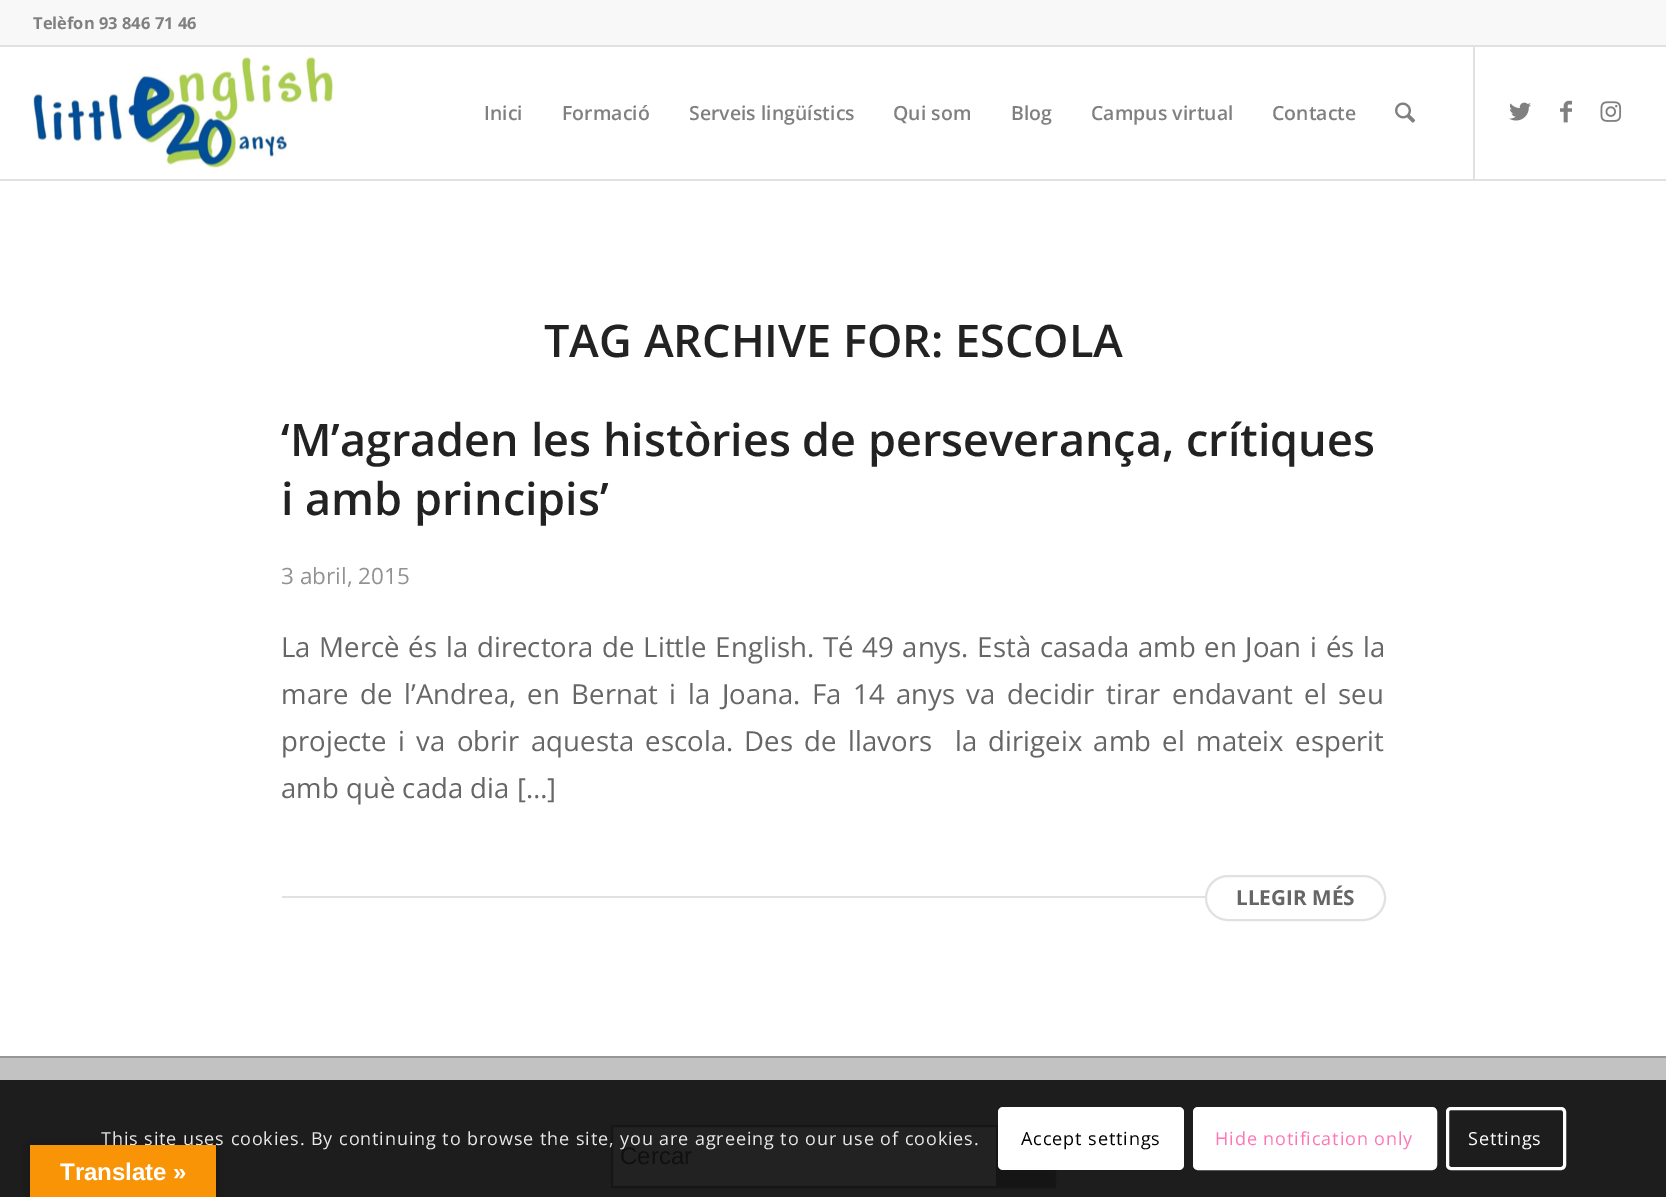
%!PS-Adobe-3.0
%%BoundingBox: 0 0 1666 1197
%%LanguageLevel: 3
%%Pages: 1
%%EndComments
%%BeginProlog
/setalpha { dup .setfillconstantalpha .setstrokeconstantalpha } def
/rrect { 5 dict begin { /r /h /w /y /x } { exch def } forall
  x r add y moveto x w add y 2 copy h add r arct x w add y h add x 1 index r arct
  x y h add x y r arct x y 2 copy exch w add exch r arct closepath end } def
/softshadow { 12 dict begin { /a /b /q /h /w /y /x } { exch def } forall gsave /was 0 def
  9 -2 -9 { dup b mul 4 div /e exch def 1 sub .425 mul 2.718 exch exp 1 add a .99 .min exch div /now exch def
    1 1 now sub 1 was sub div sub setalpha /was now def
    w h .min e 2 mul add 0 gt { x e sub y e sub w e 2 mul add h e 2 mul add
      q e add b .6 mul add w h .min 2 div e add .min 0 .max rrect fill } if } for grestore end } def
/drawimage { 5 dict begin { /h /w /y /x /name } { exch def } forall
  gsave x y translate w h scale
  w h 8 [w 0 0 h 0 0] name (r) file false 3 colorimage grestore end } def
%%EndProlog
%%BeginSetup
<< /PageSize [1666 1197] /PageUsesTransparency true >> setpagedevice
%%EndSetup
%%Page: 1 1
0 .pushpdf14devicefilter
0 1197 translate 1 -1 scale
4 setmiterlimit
1 setgray
0 0 1666 1197 rectfill
0.973 setgray
0 0 1666 45 rectfill
0.882 setgray
0 45 1666 2 rectfill
0 179 1666 2 rectfill
(images/1.raw) 33 47 300 121 drawimage
1473 47 2 132 rectfill
(images/2.raw) 1395 102 21 21 drawimage
(images/3.raw) 1509 102 22 19 drawimage
(images/4.raw) 1560 100 12 23 drawimage
(images/5.raw) 1600 101 22 21 drawimage
282 896 1104 2 rectfill
1 setgray
1206 876 179 44 22 rrect gsave fill grestore
0.882 setgray
2 setlinewidth
stroke
0.761 setgray
0 1058 1666 22 rectfill
0.114 setgray
0 1080 1666 117 rectfill
0.6 0.58 0.6 setrgbcolor
0 1056 1666 2 rectfill
0.133 setgray
613 1127 383 59 rectfill
0.09 0.086 0.09 setrgbcolor
612 1126 443 61 rectstroke
0.082 setgray
996 1127 58 59 rectfill
1 setgray
998 1107 186 63 5 rrect fill
1194.5 1108.5 241 60 3.5 rrect gsave fill grestore
3 setlinewidth
stroke
1447.5 1108.5 117 60 3.5 rrect stroke
0 setgray
30 1145 186 52 0 7 0.3 softshadow
/OpenSans-Bold [16.5 0 0 -16.5 0 0] selectfont
0.502 setgray
33 29 moveto (Telèfon 93 846 71 46) show
/OpenSans-SemiBold [19.5 0 0 -19.5 0 0] selectfont
484 120 moveto (Inici) show
562 120 moveto (Formació) show
689 120 moveto (Serveis lingüístics) show
893 120 moveto (Qui som) show
1011 120 moveto (Blog) show
1091 120 moveto (Campus virtual) show
1272 120 moveto (Contacte) show
/OpenSans-SemiBold [45 0 0 -45 0 0] selectfont
0.133 setgray
544 357 moveto (TAG ARCHIVE FOR: ESCOLA) show
281 456 moveto (‘M’agraden les històries de perseverança, crítiques) show
281 515 moveto (i amb principis’) show
/OpenSans-Regular [22.5 0 0 -22.5 0 0] selectfont
0.569 setgray
281 584 moveto (3 abril, 2015) show
/OpenSans-Regular [27.6 0 0 -27.6 0 0] selectfont
0.4 setgray
281 657 moveto 1.5 0 32 (La Mercè és la directora de Little English. Té 49 anys. Està casada amb en Joan i és la) widthshow
281 704 moveto 4.25 0 32 (mare de l’Andrea, en Bernat i la Joana. Fa 14 anys va decidir tirar endavant el seu) widthshow
281 751 moveto 4.1 0 32 (projecte i va obrir aquesta escola. Des de llavors  la dirigeix amb el mateix esperit) widthshow
281 798 moveto (amb què cada dia […]) show
/OpenSans-Bold [20.75 0 0 -20.75 0 0] selectfont
1236 905 moveto (LLEGIR MÉS) show
/LiberationSans-Regular [24 0 0 -24 0 0] selectfont
0.063 setgray
620 1164 moveto (Cercar) show
/OpenSans-Regular [18 0 0 -18 0 0] selectfont
0.914 setgray
101 1145 moveto 0.9 0 (This site uses cookies. By continuing to browse the site, you are agreeing to our use of cookies.) ashow
0 setgray
1021 1145 moveto 0.9 0 (Accept settings) ashow
1 0.459 0.71 setrgbcolor
1215 1145 moveto 0.9 0 (Hide notification only) ashow
1 setgray
1468 1145 moveto 0.9 0 (Settings) ashow
0.973 0.58 0.024 setrgbcolor
30 1145 186 52 rectfill
/LiberationSans-Bold [24 0 0 -24 0 0] selectfont
1 setgray
60 1180 moveto (Translate ») show
.poppdf14devicefilter showpage
%%EOF
